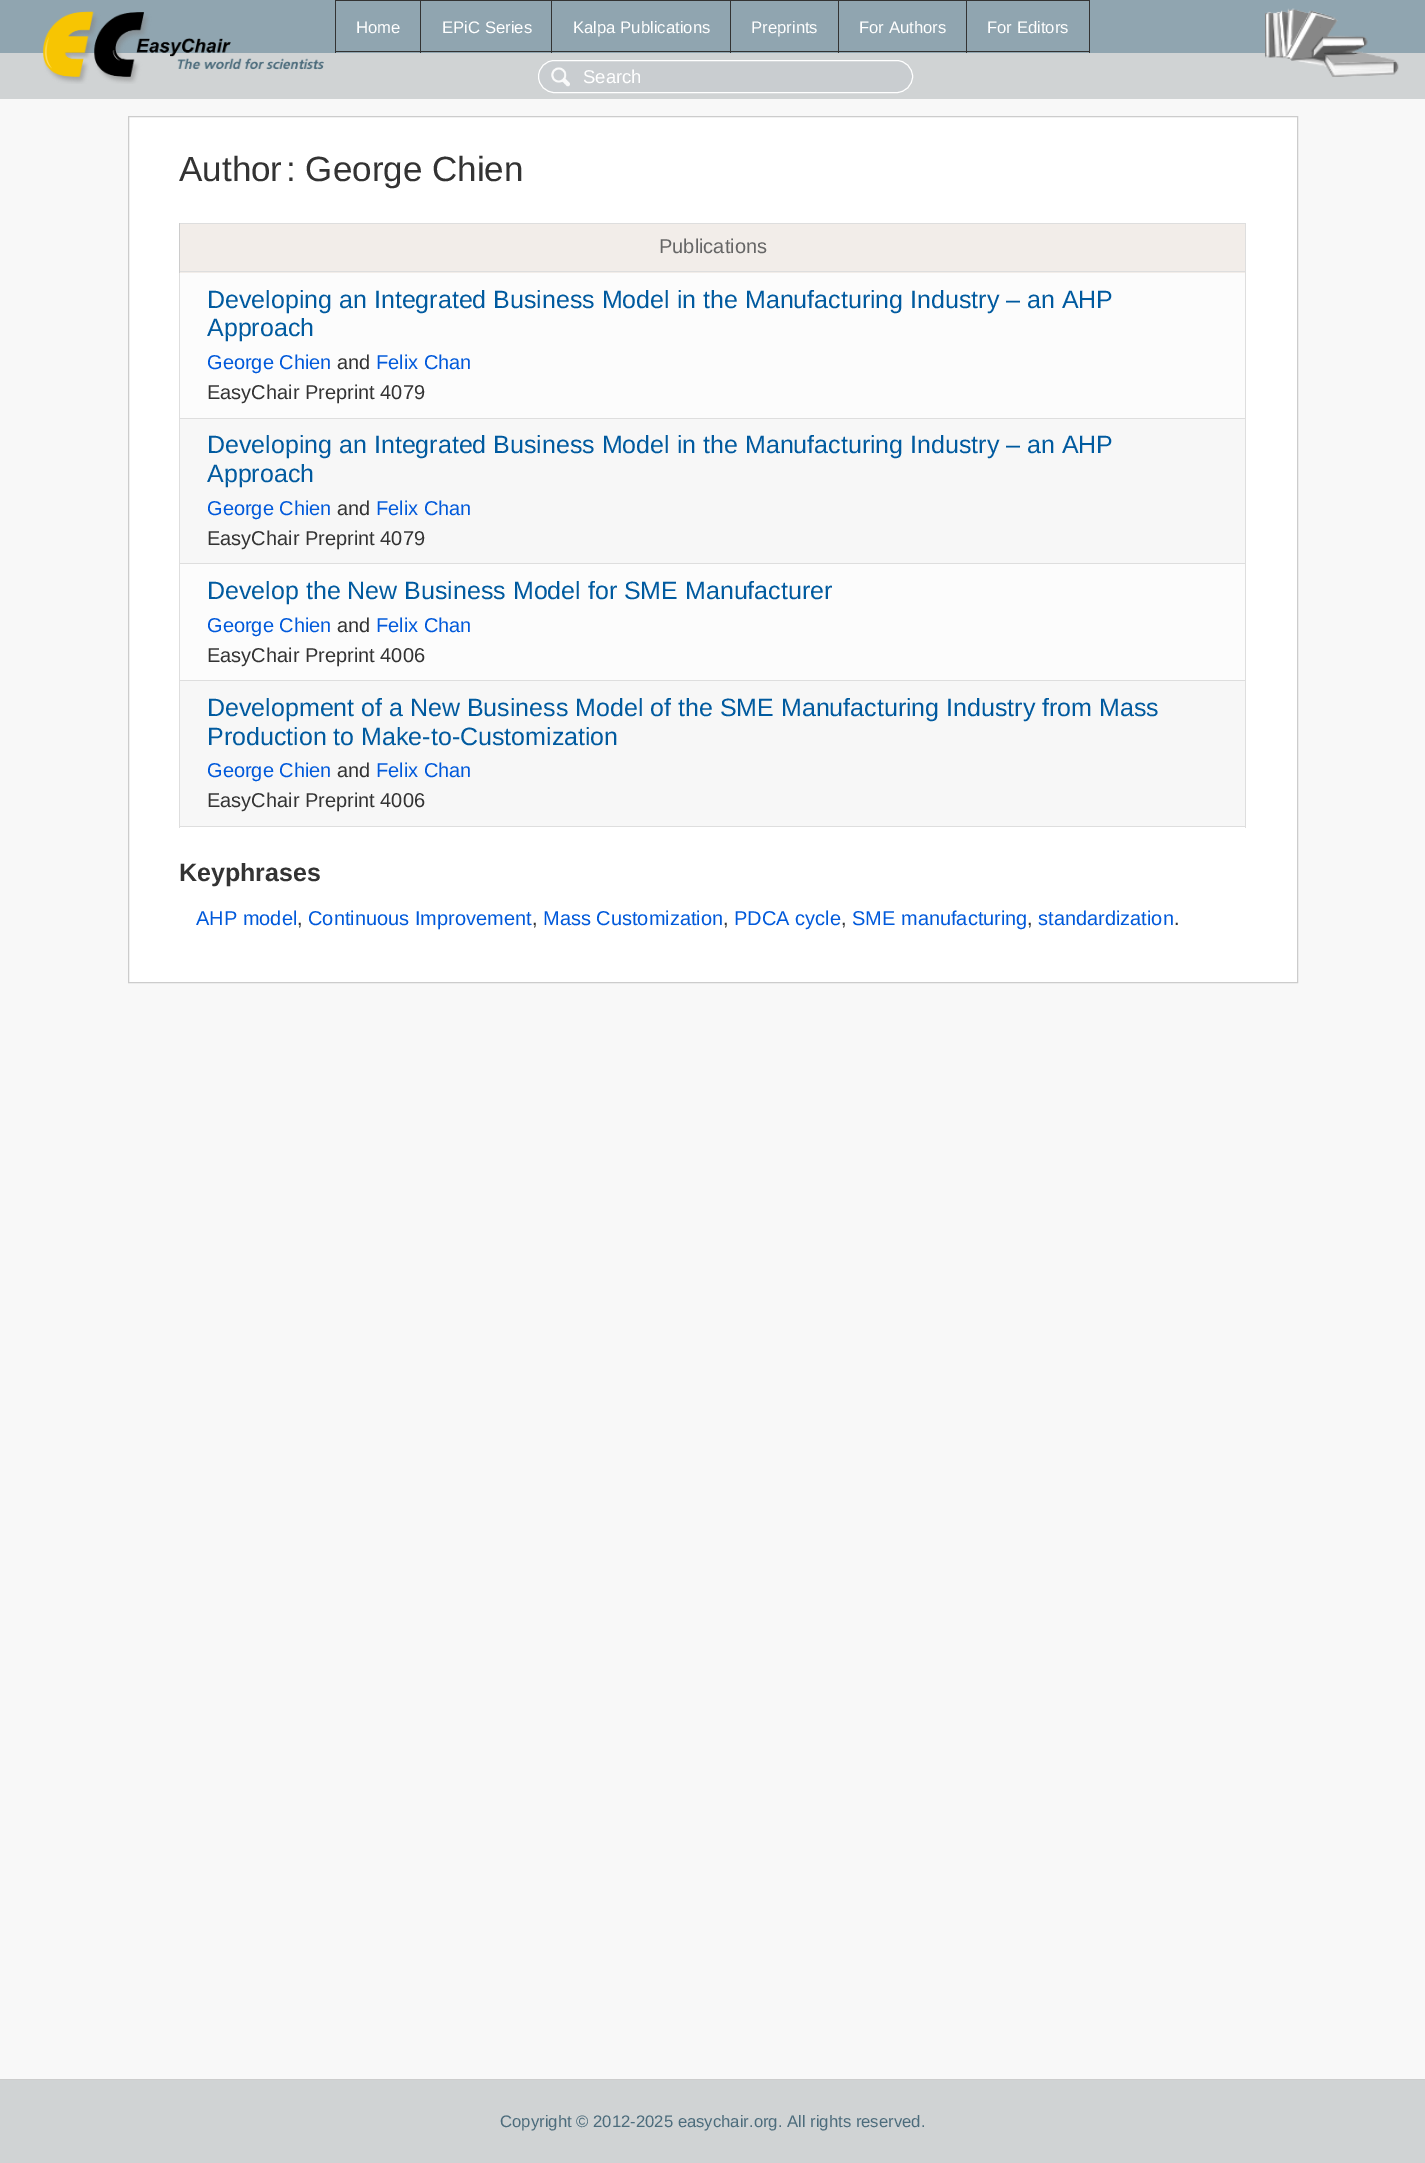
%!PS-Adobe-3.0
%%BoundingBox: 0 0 1425 2163
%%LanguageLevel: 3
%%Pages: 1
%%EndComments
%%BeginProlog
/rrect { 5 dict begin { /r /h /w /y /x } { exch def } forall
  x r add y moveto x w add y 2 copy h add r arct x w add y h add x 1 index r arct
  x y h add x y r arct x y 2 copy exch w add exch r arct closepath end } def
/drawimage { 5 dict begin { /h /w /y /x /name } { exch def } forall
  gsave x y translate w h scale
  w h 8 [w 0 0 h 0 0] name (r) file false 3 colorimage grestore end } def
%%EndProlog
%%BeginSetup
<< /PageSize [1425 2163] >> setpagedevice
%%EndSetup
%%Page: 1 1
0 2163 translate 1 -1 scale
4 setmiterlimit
0.565 0.647 0.69 setrgbcolor
0 0 1425 2163 rectfill
0.816 0.827 0.831 setrgbcolor
0 54 1424 44 rectfill
0 53 1425 1 rectfill
(images/1.raw) 43 11 281 73 drawimage
0.2 setgray
966 0 124 1 rectfill
1089 0 1 53 rectfill
966 51 124 1 rectfill
966 0 1 53 rectfill
838 0 130 1 rectfill
838 51 130 1 rectfill
838 0 1 53 rectfill
730 0 109 1 rectfill
730 51 109 1 rectfill
730 0 1 53 rectfill
551 0 180 1 rectfill
551 51 180 1 rectfill
551 0 1 53 rectfill
420 0 133 1 rectfill
420 51 133 1 rectfill
420 0 1 53 rectfill
335 0 86 1 rectfill
335 51 86 1 rectfill
335 0 1 53 rectfill
(images/2.raw) 1265 8 134 69 drawimage
0.816 0.827 0.831 setrgbcolor
1424 53 1 46 rectfill
0 98 1425 1 rectfill
0.788 0.804 0.816 setrgbcolor
538 60 375 33 16.5 rrect fill
(images/3.raw) 551 67 19 20 drawimage
1 setgray
538.5 60.5 374 32 16 rrect stroke
0.973 setgray
0 99 1425 1980 rectfill
1 setgray
newpath 128.5 116.5 moveto 1297.5 116.5 lineto 1297.5 982.5 lineto 128.5 982.5 lineto closepath gsave fill grestore
0.8 setgray
stroke
0.871 setgray
179 223 1067 1 rectfill
1245 223 1 605 rectfill
179 826 1067 1 rectfill
179 273 1 555 rectfill
0.949 0.929 0.914 setrgbcolor
180 224 1065 49 rectfill
0.871 setgray
179 271 1067 1 rectfill
0.8 setgray
179 223 1 50 rectfill
0.988 setgray
180 273 1065 145 rectfill
0.871 setgray
179 418 1067 1 rectfill
0.969 setgray
180 419 1065 144 rectfill
0.871 setgray
179 563 1067 1 rectfill
0.988 setgray
180 564 1065 116 rectfill
0.871 setgray
179 680 1067 1 rectfill
0.969 setgray
180 681 1065 145 rectfill
0.816 0.827 0.831 setrgbcolor
0 2080 1425 83 rectfill
0.8 setgray
0 2079 1425 1 rectfill
/LiberationSans-Regular [16.7 0 0 -16.7 0 0] selectfont
1 setgray
356 33 moveto (Home) show
442 33 moveto (EPiC Series) show
573 33 moveto (Kalpa Publications) show
751 33 moveto (Preprints) show
859 33 moveto (For Authors) show
987 33 moveto (For Editors) show
/LiberationSans-Regular [18.5 0 0 -18.5 0 0] selectfont
583 83 moveto (Search) show
/LiberationSans-Regular [35 0 0 -35 0 0] selectfont
0.2 setgray
179 181 moveto (Author) show
286 181 moveto (: George Chien) show
/LiberationSans-Regular [20 0 0 -20 0 0] selectfont
0.4 setgray
659 253 moveto (Publications) show
/LiberationSans-Regular [25 0 0 -25 0 0] selectfont
0 0.353 0.624 setrgbcolor
207 308 moveto (Developing an Integrated Business Model in the Manufacturing Industry – an AHP) show
207 336 moveto (Approach) show
/LiberationSans-Regular [20 0 0 -20 0 0] selectfont
0 0.349 0.859 setrgbcolor
207 369 moveto (George Chien) show
0.2 setgray
337 369 moveto (and) show
0 0.349 0.859 setrgbcolor
376 369 moveto (Felix Chan) show
0.2 setgray
207 399 moveto (EasyChair Preprint 4079) show
/LiberationSans-Regular [25 0 0 -25 0 0] selectfont
0 0.353 0.624 setrgbcolor
207 453 moveto (Developing an Integrated Business Model in the Manufacturing Industry – an AHP) show
207 482 moveto (Approach) show
/LiberationSans-Regular [20 0 0 -20 0 0] selectfont
0 0.349 0.859 setrgbcolor
207 515 moveto (George Chien) show
0.2 setgray
337 515 moveto (and) show
0 0.349 0.859 setrgbcolor
376 515 moveto (Felix Chan) show
0.2 setgray
207 545 moveto (EasyChair Preprint 4079) show
/LiberationSans-Regular [25 0 0 -25 0 0] selectfont
0 0.353 0.624 setrgbcolor
207 599 moveto (Develop the New Business Model for SME Manufacturer) show
/LiberationSans-Regular [20 0 0 -20 0 0] selectfont
0 0.349 0.859 setrgbcolor
207 632 moveto (George Chien) show
0.2 setgray
337 632 moveto (and) show
0 0.349 0.859 setrgbcolor
376 632 moveto (Felix Chan) show
0.2 setgray
207 662 moveto (EasyChair Preprint 4006) show
/LiberationSans-Regular [25 0 0 -25 0 0] selectfont
0 0.353 0.624 setrgbcolor
207 716 moveto (Development of a New Business Model of the SME Manufacturing Industry from Mass) show
207 745 moveto (Production to Make-to-Customization) show
/LiberationSans-Regular [20 0 0 -20 0 0] selectfont
0 0.349 0.859 setrgbcolor
207 777 moveto (George Chien) show
0.2 setgray
337 777 moveto (and) show
0 0.349 0.859 setrgbcolor
376 777 moveto (Felix Chan) show
0.2 setgray
207 807 moveto (EasyChair Preprint 4006) show
/LiberationSans-Bold [25 0 0 -25 0 0] selectfont
179 881 moveto (Keyphrases) show
/LiberationSans-Regular [20 0 0 -20 0 0] selectfont
0 0.349 0.859 setrgbcolor
196 925 moveto (AHP model) show
0.2 setgray
297 925 moveto (,) show
0 0.349 0.859 setrgbcolor
308 925 moveto (Continuous Improvement) show
0.2 setgray
532 925 moveto (,) show
0 0.349 0.859 setrgbcolor
543 925 moveto (Mass Customization) show
0.2 setgray
723 925 moveto (,) show
0 0.349 0.859 setrgbcolor
734 925 moveto (PDCA cycle) show
0.2 setgray
841 925 moveto (,) show
0 0.349 0.859 setrgbcolor
852 925 moveto (SME manufacturing) show
0.2 setgray
1027 925 moveto (,) show
0 0.349 0.859 setrgbcolor
1038 925 moveto (standardization) show
0.2 setgray
1174 925 moveto (.) show
/LiberationSans-Regular [16.7 0 0 -16.7 0 0] selectfont
0.298 0.424 0.486 setrgbcolor
500 2127 moveto (Copyright © 2012-2025 easychair.org. All rights reserved.) show
showpage
%%EOF
